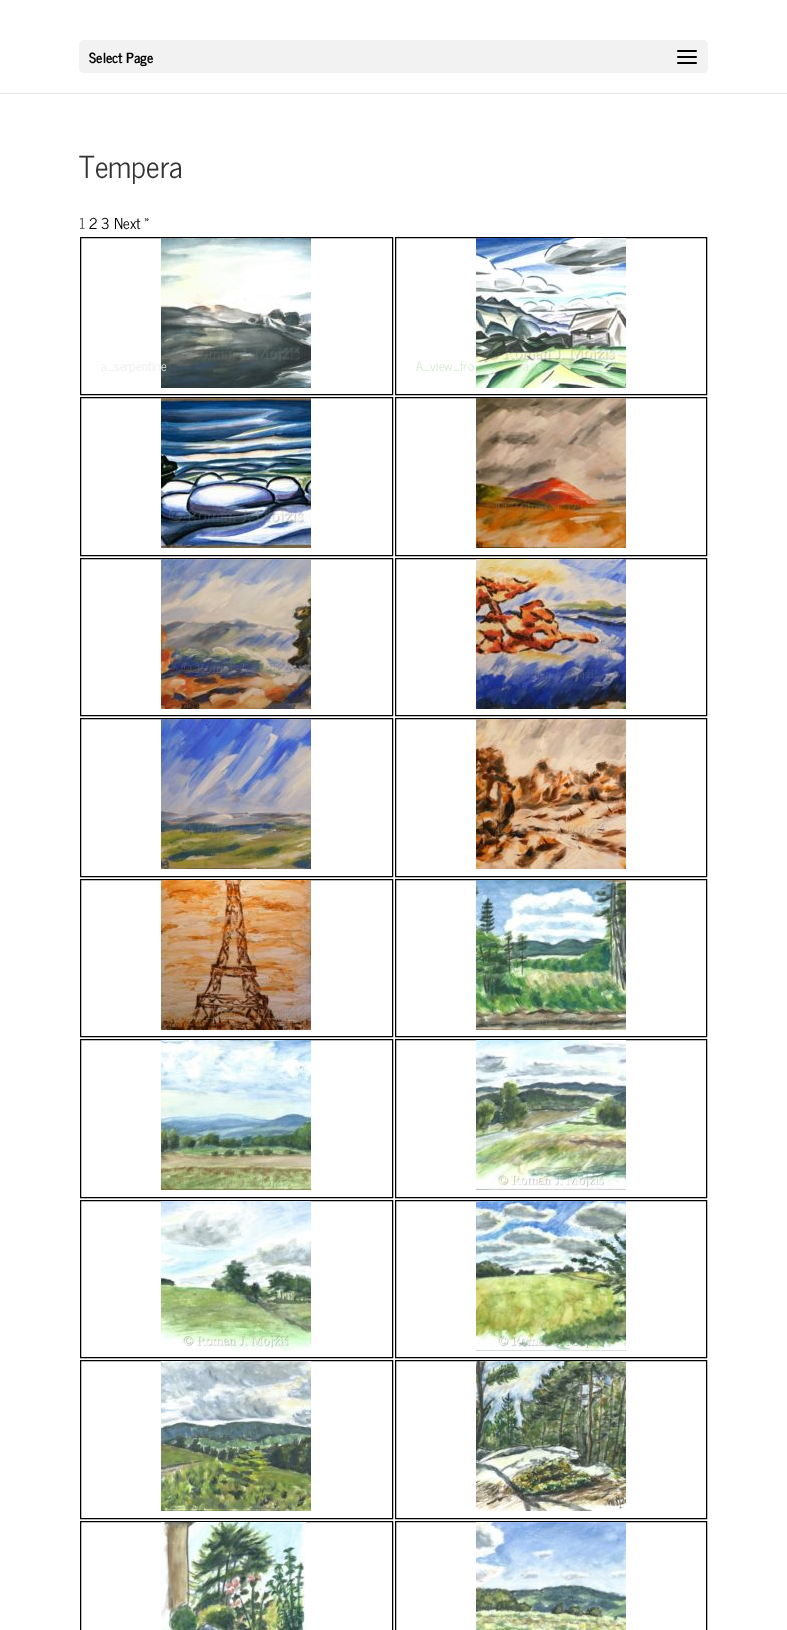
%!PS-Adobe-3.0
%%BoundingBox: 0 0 787 1630
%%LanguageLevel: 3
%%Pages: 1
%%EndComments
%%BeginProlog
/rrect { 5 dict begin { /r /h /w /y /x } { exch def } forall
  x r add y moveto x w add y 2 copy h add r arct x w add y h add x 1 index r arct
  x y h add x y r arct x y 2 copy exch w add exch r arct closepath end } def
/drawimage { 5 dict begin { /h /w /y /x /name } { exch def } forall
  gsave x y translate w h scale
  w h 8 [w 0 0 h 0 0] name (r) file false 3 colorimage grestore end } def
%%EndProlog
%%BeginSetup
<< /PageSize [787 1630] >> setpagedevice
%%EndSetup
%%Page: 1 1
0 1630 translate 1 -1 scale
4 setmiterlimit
1 setgray
0 0 787 1630 rectfill
0.902 setgray
0 93 787 1 rectfill
0.949 setgray
79 40 629 33 5 rrect fill
(images/1.raw) 677 50 20 14 drawimage
0 setgray
80.5 237.5 312 157 rectstroke
(images/2.raw) 161 238 150 150 drawimage
395.5 237.5 311 157 rectstroke
(images/3.raw) 476 238 150 150 drawimage
80.5 397.5 312 158 rectstroke
(images/4.raw) 161 398 150 150 drawimage
395.5 397.5 311 158 rectstroke
(images/5.raw) 476 398 150 150 drawimage
80.5 558.5 312 157 rectstroke
(images/6.raw) 161 559 150 150 drawimage
395.5 558.5 311 157 rectstroke
(images/7.raw) 476 559 150 150 drawimage
80.5 718.5 312 158 rectstroke
(images/8.raw) 161 719 150 150 drawimage
395.5 718.5 311 158 rectstroke
(images/9.raw) 476 719 150 150 drawimage
80.5 879.5 312 157 rectstroke
(images/10.raw) 161 880 150 150 drawimage
395.5 879.5 311 157 rectstroke
(images/11.raw) 476 880 150 150 drawimage
80.5 1039.5 312 158 rectstroke
(images/12.raw) 161 1040 150 150 drawimage
395.5 1039.5 311 158 rectstroke
(images/13.raw) 476 1040 150 150 drawimage
80.5 1200.5 312 157 rectstroke
(images/14.raw) 161 1201 150 150 drawimage
395.5 1200.5 311 157 rectstroke
(images/15.raw) 476 1201 150 150 drawimage
80.5 1360.5 312 158 rectstroke
(images/16.raw) 161 1361 150 150 drawimage
395.5 1360.5 311 158 rectstroke
(images/17.raw) 476 1361 150 150 drawimage
80.5 1521.5 312 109 rectstroke
(images/18.raw) 161 1522 145 108 drawimage
395.5 1521.5 311 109 rectstroke
(images/19.raw) 476 1522 150 108 drawimage
/NewsCycle-Bold [14 0 0 -14 0 0] selectfont
89 63 moveto (Select Page) show
/NewsCycle-Regular [30 0 0 -30 0 0] selectfont
0.2 setgray
79 178 moveto (Tempera) show
/NewsCycle-Regular [15 0 0 -15 0 0] selectfont
0.4 setgray
79 229 moveto (1) show
0 setgray
89 229 moveto (2 3 Next ») show
/NewsCycle-Regular [13 0 0 -13 0 0] selectfont
0.929 0.937 0.937 setrgbcolor
101 371 moveto (a_serpentine) show
0.847 0.918 0.831 setrgbcolor
416 371 moveto (A_view_fro) show
523 371 moveto (a) show
537 371 moveto (s) show
showpage
%%EOF
